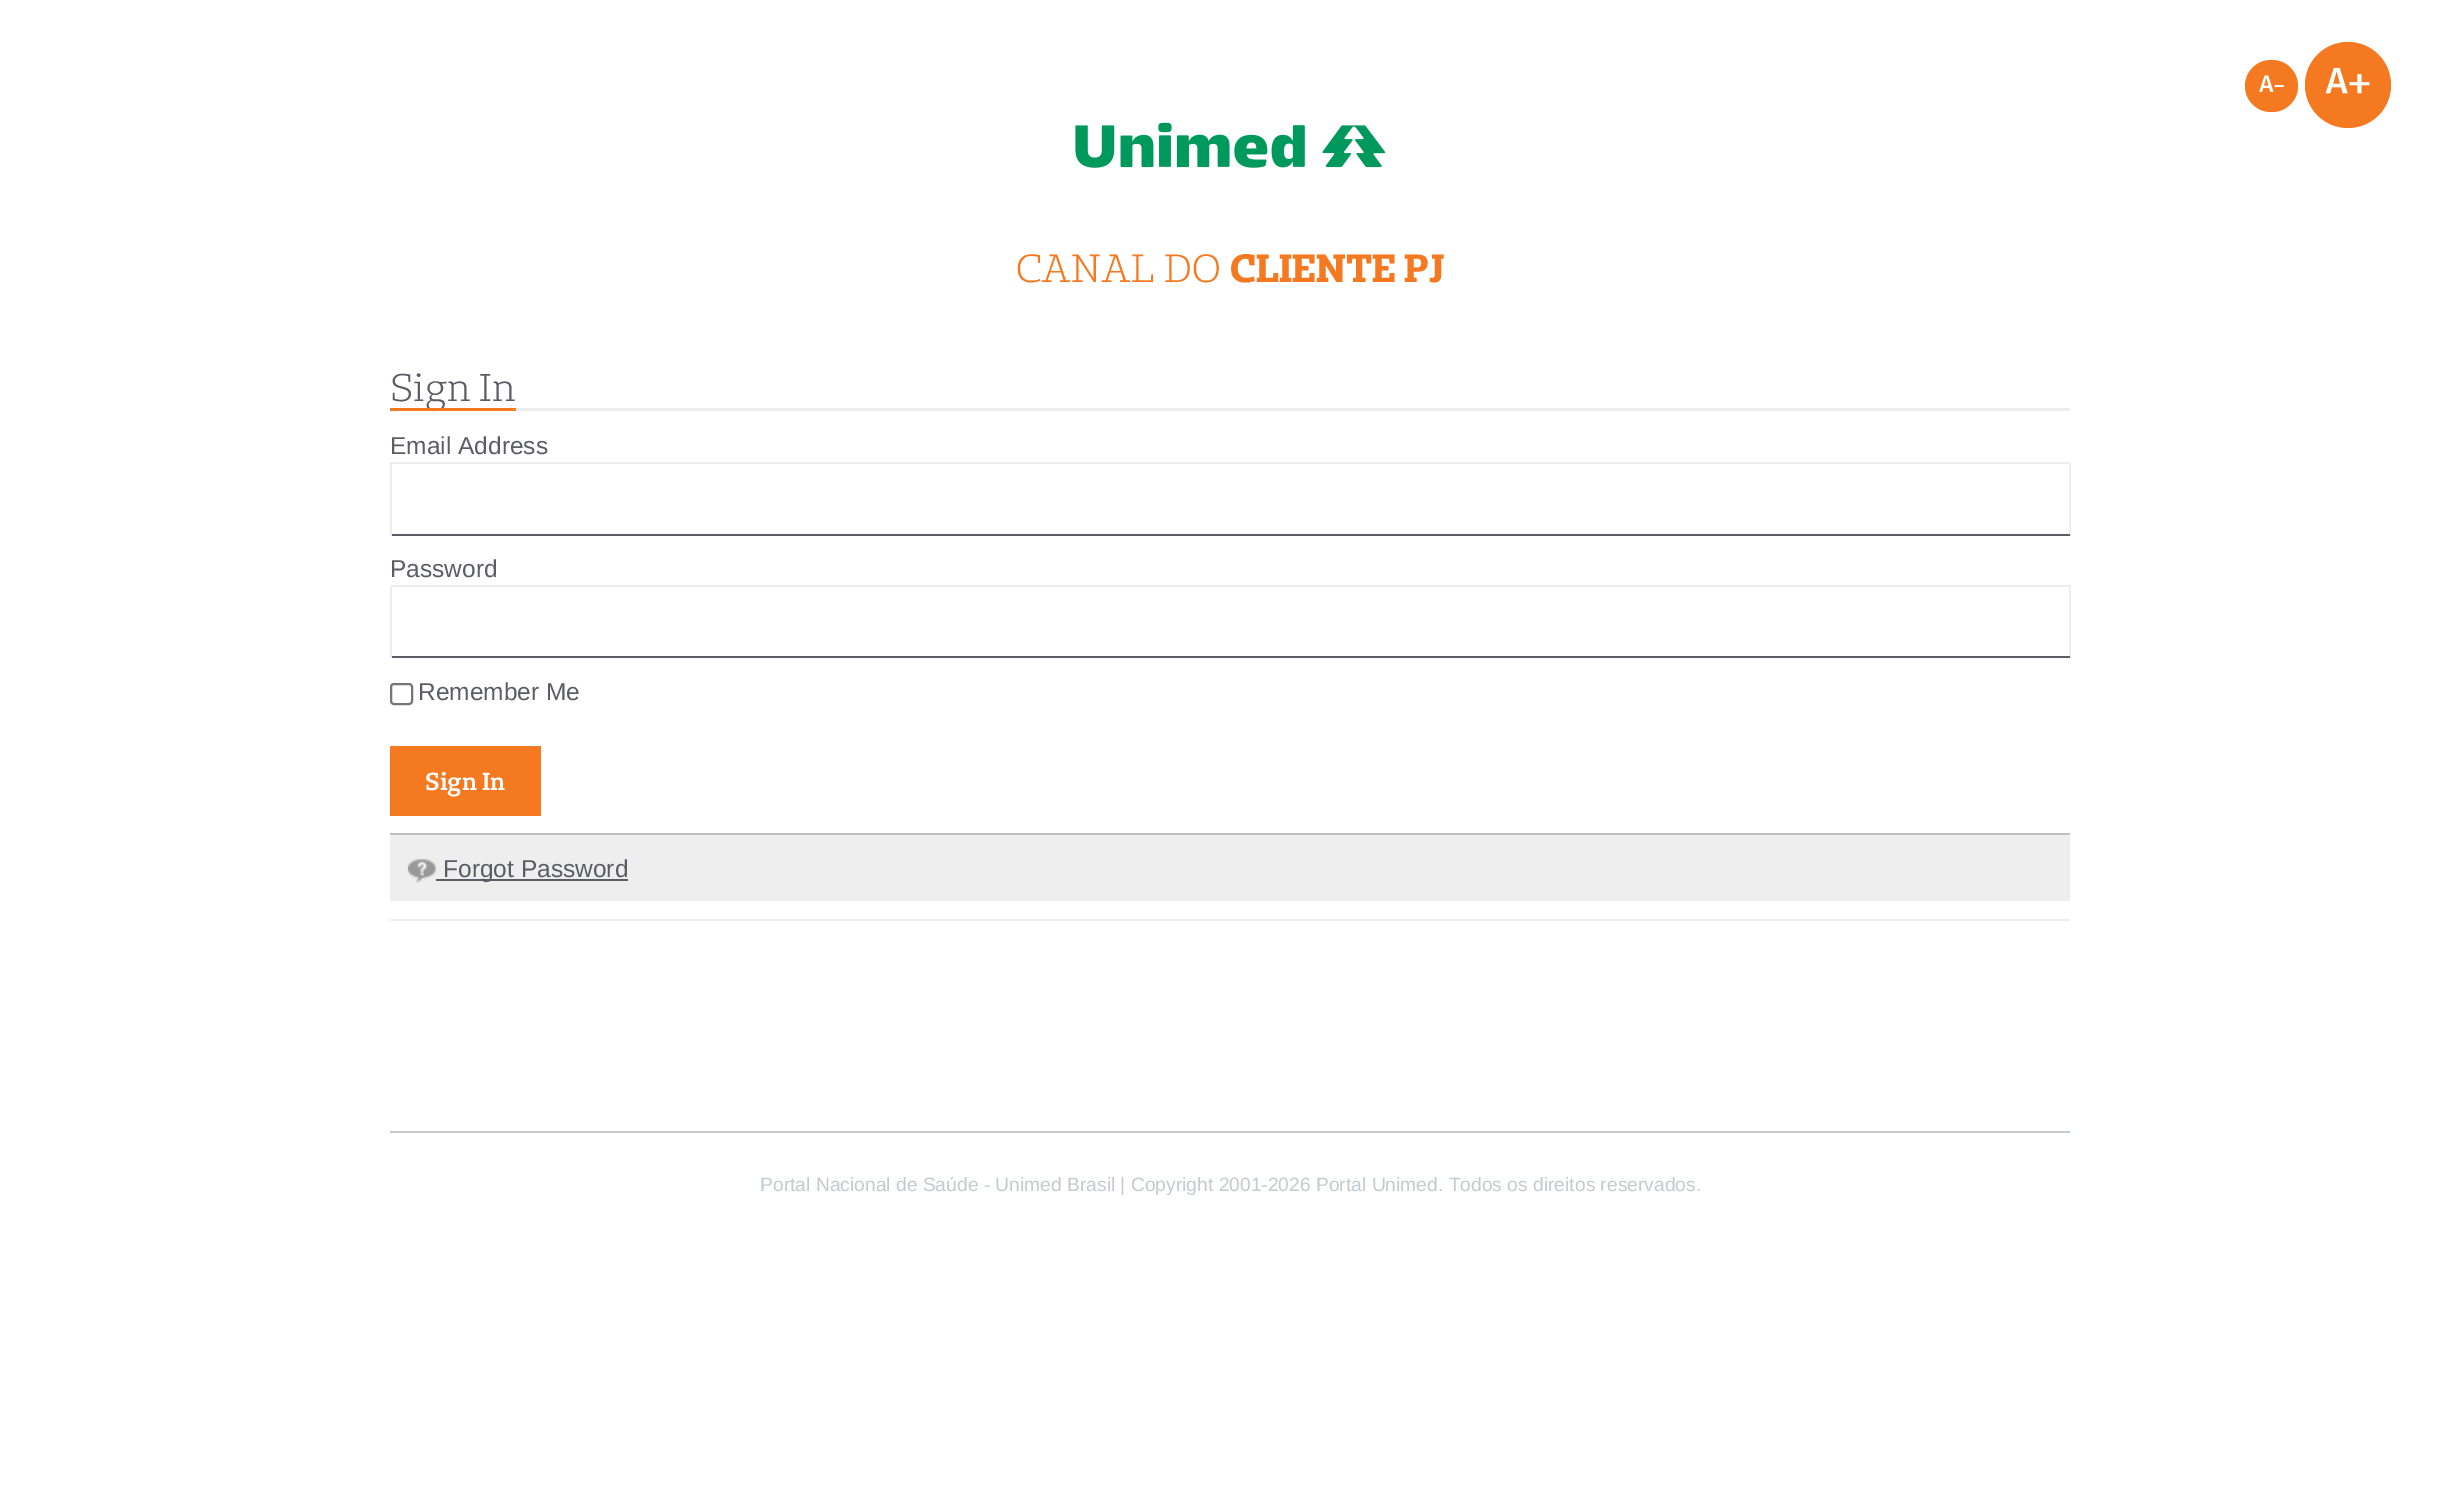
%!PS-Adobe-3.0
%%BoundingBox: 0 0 2460 1488
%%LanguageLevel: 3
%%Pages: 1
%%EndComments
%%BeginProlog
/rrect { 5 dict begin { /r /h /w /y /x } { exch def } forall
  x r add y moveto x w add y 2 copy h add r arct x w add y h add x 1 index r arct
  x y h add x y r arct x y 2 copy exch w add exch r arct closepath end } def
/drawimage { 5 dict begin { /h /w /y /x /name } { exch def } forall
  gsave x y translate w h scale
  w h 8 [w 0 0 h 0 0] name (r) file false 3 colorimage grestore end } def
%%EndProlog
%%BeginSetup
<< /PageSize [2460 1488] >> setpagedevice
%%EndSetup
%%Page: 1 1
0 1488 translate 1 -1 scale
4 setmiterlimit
1 setgray
0 0 2460 1488 rectfill
0.957 0.475 0.125 setrgbcolor
2245 60 53 52 26 rrect fill
(images/1.raw) 2259 75 25 17 drawimage
newpath 2348 85 43 0 360 arc closepath fill
(images/2.raw) 2325 67 45 27 drawimage
(images/3.raw) 1075 122 311 46 drawimage
0.929 setgray
390 919 1680 2 rectfill
516 408 1554 3 rectfill
390 462 1680 2 rectfill
2069 462 2 74 rectfill
0.357 0.361 0.396 setrgbcolor
390 534 1680 2 rectfill
0.929 setgray
390 462 2 74 rectfill
390 585 1680 2 rectfill
2069 585 2 73 rectfill
0.357 0.361 0.396 setrgbcolor
390 656 1680 2 rectfill
0.929 setgray
390 585 2 73 rectfill
0.463 setgray
2 setlinewidth
391 684 21 20 3 rrect stroke
0.957 0.475 0.125 setrgbcolor
390 746 151 70 rectfill
0.933 setgray
390 835 1680 66 rectfill
0.749 setgray
390 833 1680 2 rectfill
(images/4.raw) 407 858 29 25 drawimage
0.357 0.361 0.396 setrgbcolor
436 879 192 2 rectfill
0.769 0.796 0.812 setrgbcolor
390 1131 1680 2 rectfill
/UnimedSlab-Regular [39.25 0 0 -39.25 0 0] selectfont
0.957 0.475 0.125 setrgbcolor
1016 282 moveto (CANAL DO) show
/UnimedSlab-Bold [39.25 0 0 -39.25 0 0] selectfont
1230 282 moveto (CLIENTE PJ) show
/UnimedSlab-Regular [38.5 0 0 -38.5 0 0] selectfont
0.357 0.361 0.396 setrgbcolor
390 401 moveto (Sign In) show
0.957 0.475 0.125 setrgbcolor
390 408 126 3 rectfill
/LiberationSans-Regular [24.5 0 0 -24.5 0 0] selectfont
0.357 0.361 0.396 setrgbcolor
390 454 moveto (Email Address) show
390 577 moveto (Password) show
418 700 moveto (Remember Me) show
/UnimedSlab-SemiBold [24.5 0 0 -24.5 0 0] selectfont
1 setgray
425 790 moveto (Sign In) show
/LiberationSans-Regular [24.5 0 0 -24.5 0 0] selectfont
0.357 0.361 0.396 setrgbcolor
443 877 moveto (Forgot Password) show
/LiberationSans-Regular [19.25 0 0 -19.25 0 0] selectfont
0.769 0.796 0.812 setrgbcolor
760 1191 moveto (Portal Nacional de Saúde - Unimed Brasil | Copyright 2001-2026 Portal Unimed. Todos os direitos reservados.) show
showpage
%%EOF
